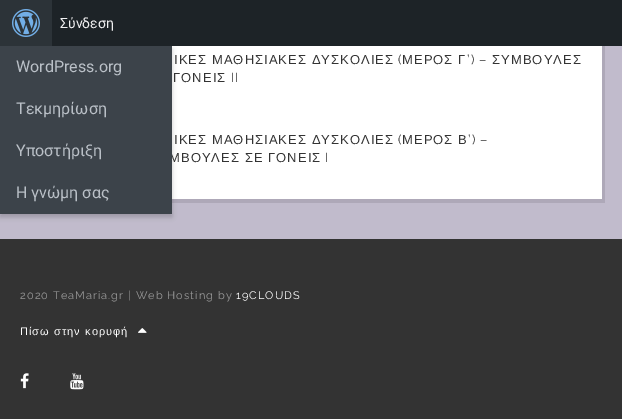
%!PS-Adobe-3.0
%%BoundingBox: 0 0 622 419
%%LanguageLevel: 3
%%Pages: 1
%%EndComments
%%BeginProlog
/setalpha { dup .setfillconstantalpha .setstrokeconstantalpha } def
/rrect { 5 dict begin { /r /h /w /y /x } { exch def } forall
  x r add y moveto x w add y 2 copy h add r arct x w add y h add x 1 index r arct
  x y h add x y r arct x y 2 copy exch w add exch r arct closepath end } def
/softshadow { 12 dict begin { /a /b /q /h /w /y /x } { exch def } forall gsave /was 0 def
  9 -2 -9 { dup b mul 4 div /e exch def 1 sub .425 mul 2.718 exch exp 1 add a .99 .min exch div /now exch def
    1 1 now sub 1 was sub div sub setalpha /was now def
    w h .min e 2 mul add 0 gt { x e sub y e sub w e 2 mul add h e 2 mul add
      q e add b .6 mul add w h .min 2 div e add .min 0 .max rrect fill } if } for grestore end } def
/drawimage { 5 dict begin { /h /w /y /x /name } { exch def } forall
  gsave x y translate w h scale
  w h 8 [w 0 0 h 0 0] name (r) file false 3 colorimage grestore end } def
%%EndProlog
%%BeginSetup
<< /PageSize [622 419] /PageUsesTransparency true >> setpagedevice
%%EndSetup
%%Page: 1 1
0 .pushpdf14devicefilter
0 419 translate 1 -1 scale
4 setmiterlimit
0.757 0.733 0.8 setrgbcolor
0 0 622 419 rectfill
0.682 0.659 0.722 setrgbcolor
newpath 23 199 moveto 23 203 lineto 605 203 lineto 605 -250 lineto 602 -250 lineto 602 199 lineto closepath fill
0.114 0.137 0.153 setrgbcolor
52 0 570 46 rectfill
0.173 0.2 0.22 setrgbcolor
0 0 52 46 rectfill
(images/1.raw) 12 9 28 28 drawimage
1 setgray
172 46 430 153 rectfill
0 setgray
0 49 172 168 0 2.5 0.2 softshadow
0.2 setgray
0 239 622 180 rectfill
(images/2.raw) 138 328 9 5 drawimage
(images/3.raw) 20 373 9 16 drawimage
(images/4.raw) 70 373 14 17 drawimage
/Roboto-Regular [14 0 0 -14 0 0] selectfont
0.941 0.941 0.945 setrgbcolor
60 28 moveto (Σύνδεση) show
/LiberationSans-Regular [13 0 0 -13 0 0] selectfont
0.2 setgray
174 64 moveto 1.05 0 (ΙΚΕΣ ΜΑΘΗΣΙΑΚΕΣ ΔΥΣΚΟΛΙΕΣ) ashow
/Raleway-Regular [13 0 0 -13 0 0] selectfont
398 64 moveto 1.05 0 (\() ashow
/LiberationSans-Regular [13 0 0 -13 0 0] selectfont
402 64 moveto 1.05 0 (ΜΕΡΟΣ Γ) ashow
/Raleway-Regular [13 0 0 -13 0 0] selectfont
467 64 moveto 1.05 0 (’\) –) ashow
/LiberationSans-Regular [13 0 0 -13 0 0] selectfont
492 64 moveto 1.05 0 (ΣΥΜΒΟΥΛΕΣ) ashow
173 82 moveto 1.05 0 (ΓΟΝΕΙΣ) ashow
/Raleway-Regular [13 0 0 -13 0 0] selectfont
231 82 moveto 1.05 0 (II) ashow
/LiberationSans-Regular [13 0 0 -13 0 0] selectfont
174 144 moveto 1.05 0 (ΙΚΕΣ ΜΑΘΗΣΙΑΚΕΣ ΔΥΣΚΟΛΙΕΣ) ashow
/Raleway-Regular [13 0 0 -13 0 0] selectfont
398 144 moveto 1.05 0 (\() ashow
/LiberationSans-Regular [13 0 0 -13 0 0] selectfont
402 144 moveto 1.05 0 (ΜΕΡΟΣ Β) ashow
/Raleway-Regular [13 0 0 -13 0 0] selectfont
468 144 moveto 1.05 0 (’\) –) ashow
/LiberationSans-Regular [13 0 0 -13 0 0] selectfont
169 162 moveto 1.05 0 (ΜΒΟΥΛΕΣ ΣΕ ΓΟΝΕΙΣ) ashow
0.235 0.263 0.29 setrgbcolor
0 46 172 168 rectfill
/Roboto-Regular [16 0 0 -16 0 0] selectfont
0.729 0.753 0.78 setrgbcolor
16 198 moveto (Η γνώμη σας) show
16 156 moveto (Υποστήριξη) show
16 114 moveto (Τεκμηρίωση) show
16 72 moveto (WordPress.org) show
/Raleway-Regular [13 0 0 -13 0 0] selectfont
0.2 setgray
325 162 moveto 1.05 0 (I) ashow
/Raleway-Regular [11 0 0 -11 0 0] selectfont
0.6 setgray
20 299 moveto 1.05 0 (2020 TeaMaria.gr | Web Hosting by) ashow
1 setgray
236 299 moveto 1.05 0 (19CLOUDS) ashow
/LiberationSans-Regular [11 0 0 -11 0 0] selectfont
20 335 moveto 1.05 0 (Πίσω στην κορυφή) ashow
.poppdf14devicefilter showpage
%%EOF
